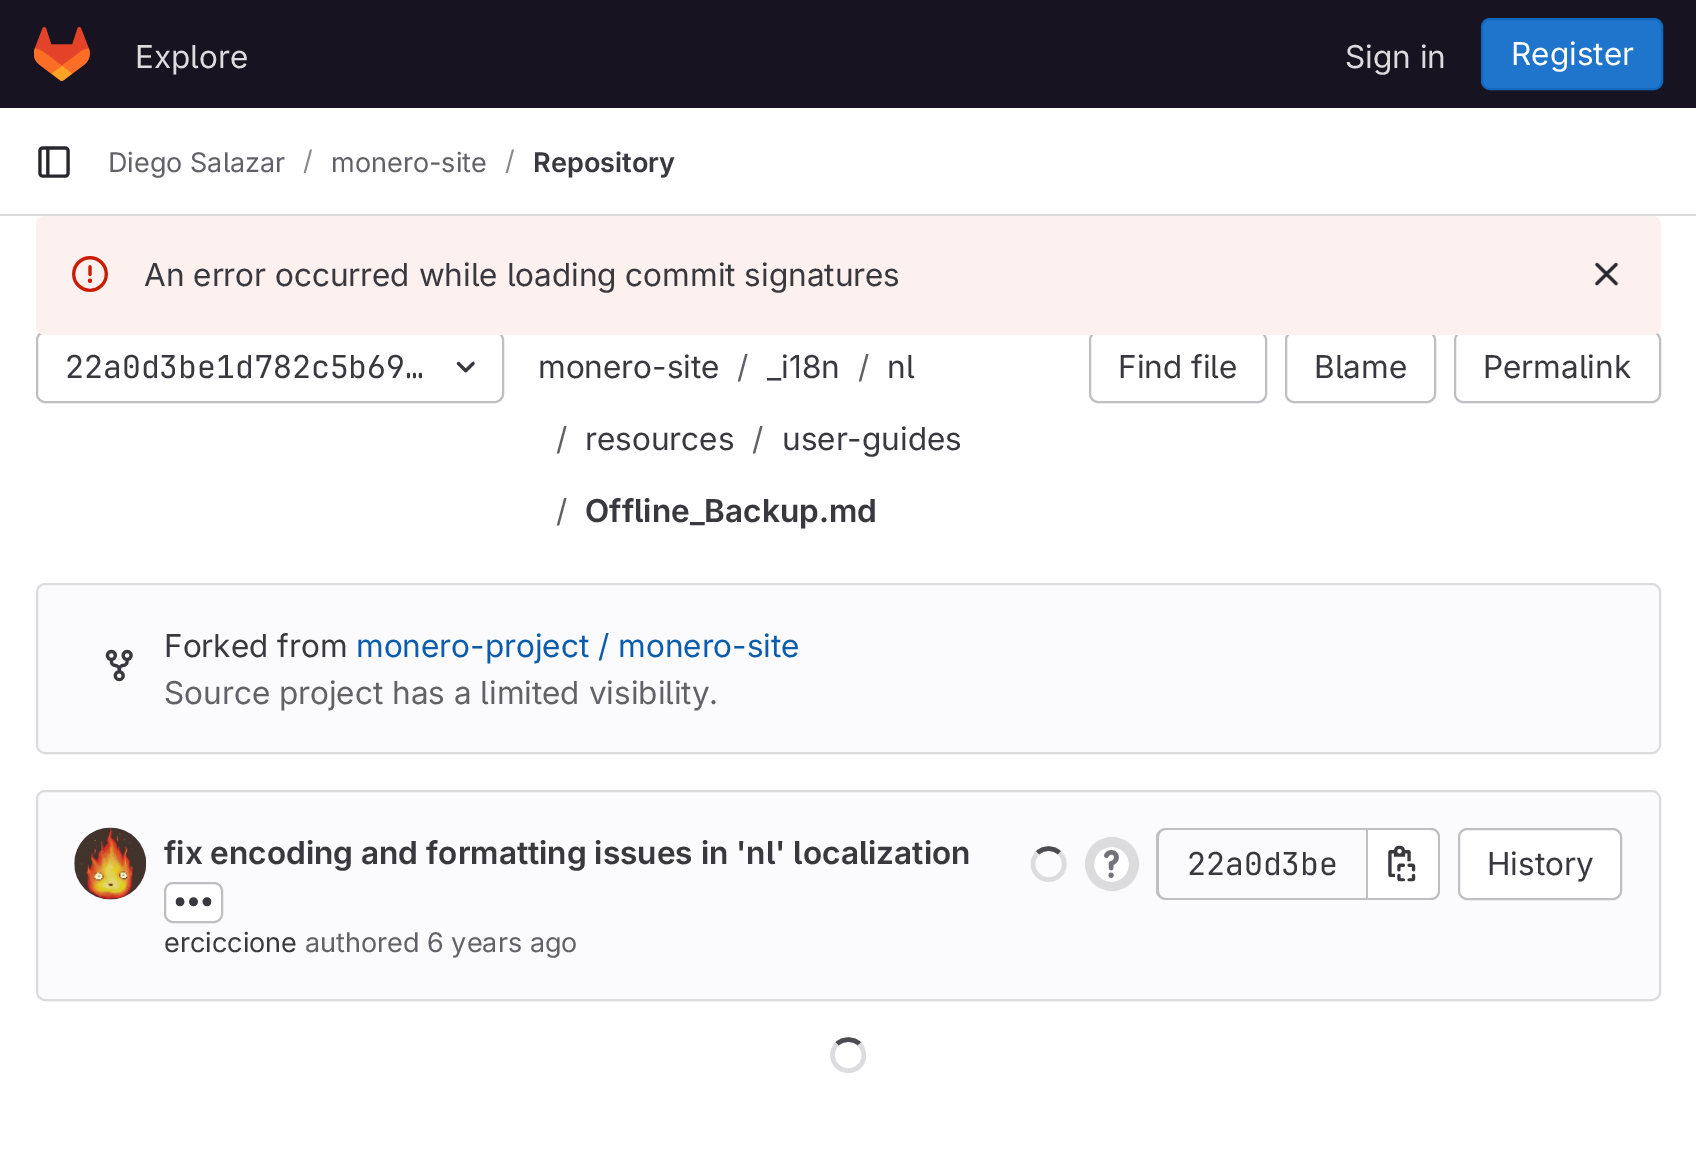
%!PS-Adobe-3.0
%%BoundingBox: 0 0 1696 1156
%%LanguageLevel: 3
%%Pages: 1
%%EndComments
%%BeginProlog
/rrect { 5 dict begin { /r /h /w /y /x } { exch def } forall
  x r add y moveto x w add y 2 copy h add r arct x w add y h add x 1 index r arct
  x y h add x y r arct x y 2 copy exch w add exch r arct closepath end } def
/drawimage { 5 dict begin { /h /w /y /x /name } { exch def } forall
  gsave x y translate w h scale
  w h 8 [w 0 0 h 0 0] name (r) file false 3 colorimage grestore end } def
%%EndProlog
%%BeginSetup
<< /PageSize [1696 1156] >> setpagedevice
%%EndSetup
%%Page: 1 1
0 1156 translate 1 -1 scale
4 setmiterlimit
1 setgray
0 0 1696 1156 rectfill
0.09 0.075 0.129 setrgbcolor
0 0 1696 108 rectfill
(images/1.raw) 34 27 56 54 drawimage
0.122 0.459 0.796 setrgbcolor
1482 19 180 70 8 rrect gsave fill grestore
0.063 0.408 0.749 setrgbcolor
2 setlinewidth
stroke
0.863 0.863 0.871 setrgbcolor
0 214 1696 2 rectfill
(images/2.raw) 38 146 32 32 drawimage
0.749 0.749 0.765 setrgbcolor
37 332 466 70 8 rrect stroke
1090 332 176 70 8 rrect stroke
1286 332 149 70 8 rrect stroke
1455 332 205 70 8 rrect stroke
0.988 0.945 0.937 setrgbcolor
36 216 1625 119 9 rrect fill
(images/3.raw) 72 256 36 36 drawimage
(images/4.raw) 1594 262 25 24 drawimage
(images/5.raw) 456 361 19 12 drawimage
0.984 0.98 0.992 setrgbcolor
37 584 1623 169 8 rrect gsave fill grestore
0.863 0.863 0.871 setrgbcolor
stroke
(images/6.raw) 105 649 28 33 drawimage
0.984 0.98 0.992 setrgbcolor
37 791 1623 209 8 rrect gsave fill grestore
0.863 0.863 0.871 setrgbcolor
stroke
0.906 0.902 0.914 setrgbcolor
newpath 110 864 35 0 360 arc closepath stroke
(images/7.raw) 74 827 73 73 drawimage
1 setgray
165 883 57 39 8 rrect gsave fill grestore
0.749 0.749 0.765 setrgbcolor
stroke
(images/8.raw) 175 897 37 10 drawimage
0.298 0.294 0.318 setrgbcolor
4.5 setlinewidth
newpath 1037.5 853 moveto 1043.5 847 1053.5 847 1059.5 853 curveto stroke
0.863 0.863 0.871 setrgbcolor
newpath 1059.5 853 moveto 1063.5 856.5 1065 862 1064 867 curveto 1060.5 885.5 1033 883 1033 864 curveto 1033 860 1034.5 856 1037.5 853 curveto stroke
5 setlinewidth
newpath 1112 864 24.5 0 360 arc closepath stroke
1 setgray
newpath 1111.5 864.5 20 0 360 arc closepath gsave fill grestore
0.863 0.863 0.871 setrgbcolor
stroke
(images/9.raw) 1104 850 15 28 drawimage
0.749 0.749 0.765 setrgbcolor
newpath 1166 828 moveto 1366 828 lineto 1366 900 lineto 1166 900 lineto 1161 900 1156 896 1156 891 curveto 1156 837 lineto 1156 832 1161 828 1166 828 curveto closepath 1166 830 moveto 1366 830 lineto 1366 898 lineto 1166 898 lineto 1162 898 1159 895 1159 891 curveto 1159 837 lineto 1159 833 1162 830 1166 830 curveto closepath eofill
1 setgray
newpath 1368 830 moveto 1431 830 lineto 1435 830 1438 833 1438 837 curveto 1438 891 lineto 1438 895 1435 898 1431 898 curveto 1368 898 lineto closepath fill
0.749 0.749 0.765 setrgbcolor
newpath 1368 828 moveto 1431 828 lineto 1436 828 1440 832 1440 837 curveto 1440 891 lineto 1440 896 1436 900 1431 900 curveto 1368 900 lineto closepath 1368 830 moveto 1431 830 lineto 1435 830 1438 833 1438 837 curveto 1438 891 lineto 1438 895 1435 898 1431 898 curveto 1368 898 lineto closepath eofill
1366 828 2 72 rectfill
(images/10.raw) 1388 845 28 37 drawimage
1 setgray
1459 829 162 70 8 rrect gsave fill grestore
0.749 0.749 0.765 setrgbcolor
2 setlinewidth
stroke
0.298 0.294 0.318 setrgbcolor
4.5 setlinewidth
newpath 837 1044 moveto 843 1038 853.5 1038 859.5 1044 curveto stroke
0.863 0.863 0.871 setrgbcolor
newpath 859.5 1044 moveto 863 1048 864.5 1053 863.5 1058.5 curveto 860 1076.5 832.5 1074 832.5 1055 curveto 832.5 1051 834 1047 837 1044 curveto stroke
/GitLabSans-Regular [31.5 0 0 -31.5 0 0] selectfont
135 68 moveto (Explore) show
1345 68 moveto (Sign in) show
1 setgray
1511 65 moveto (Register) show
/GitLabSans-Regular [27 0 0 -27 0 0] selectfont
0.384 0.38 0.408 setrgbcolor
108 172 moveto (Diego Salazar) show
0.537 0.533 0.553 setrgbcolor
303 170 moveto (/) show
0.384 0.38 0.408 setrgbcolor
331 172 moveto (monero-site) show
0.537 0.533 0.553 setrgbcolor
505 170 moveto (/) show
/GitLabSans-SemiBold [27 0 0 -27 0 0] selectfont
0.227 0.22 0.247 setrgbcolor
533 172 moveto (Repository) show
/GitLabSans-Regular [31.5 0 0 -31.5 0 0] selectfont
144 286 moveto (An error occurred while loading commit signatures) show
/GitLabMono-Regular [31.5 0 0 -31.5 0 0] selectfont
65 378 moveto (22a0d3be1d782c5b69…) show
/GitLabSans-Regular [31.5 0 0 -31.5 0 0] selectfont
538 378 moveto (monero-site) show
0.384 0.38 0.408 setrgbcolor
737 378 moveto (/) show
0.227 0.22 0.247 setrgbcolor
767 378 moveto (_i18n) show
0.384 0.38 0.408 setrgbcolor
858 378 moveto (/) show
0.227 0.22 0.247 setrgbcolor
887 378 moveto (nl) show
0.384 0.38 0.408 setrgbcolor
556 450 moveto (/) show
0.227 0.22 0.247 setrgbcolor
585 450 moveto (resources) show
0.384 0.38 0.408 setrgbcolor
752 450 moveto (/) show
0.227 0.22 0.247 setrgbcolor
782 450 moveto (user-guides) show
0.384 0.38 0.408 setrgbcolor
556 522 moveto (/) show
/GitLabSans-SemiBold [31.5 0 0 -31.5 0 0] selectfont
0.227 0.22 0.247 setrgbcolor
585 522 moveto (Offline_Backup.md) show
/GitLabSans-Regular [31.5 0 0 -31.5 0 0] selectfont
1118 378 moveto (Find file) show
1314 378 moveto (Blame) show
1483 378 moveto (Permalink) show
164 657 moveto (Forked from) show
0.043 0.361 0.678 setrgbcolor
356 657 moveto (monero-project / monero-site) show
0.384 0.38 0.408 setrgbcolor
164 704 moveto (Source project has a limited visibility.) show
/GitLabSans-SemiBold [31.5 0 0 -31.5 0 0] selectfont
0.227 0.22 0.247 setrgbcolor
164 864 moveto (fix encoding and formatting issues in 'nl' localization) show
/GitLabSans-Regular [27 0 0 -27 0 0] selectfont
164 952 moveto (erciccione) show
0.384 0.38 0.408 setrgbcolor
305 952 moveto (authored 6 years ago) show
/GitLabMono-Regular [31.5 0 0 -31.5 0 0] selectfont
0.227 0.22 0.247 setrgbcolor
1187 875 moveto (22a0d3be) show
/GitLabSans-Regular [31.5 0 0 -31.5 0 0] selectfont
1487 875 moveto (History) show
showpage
%%EOF
